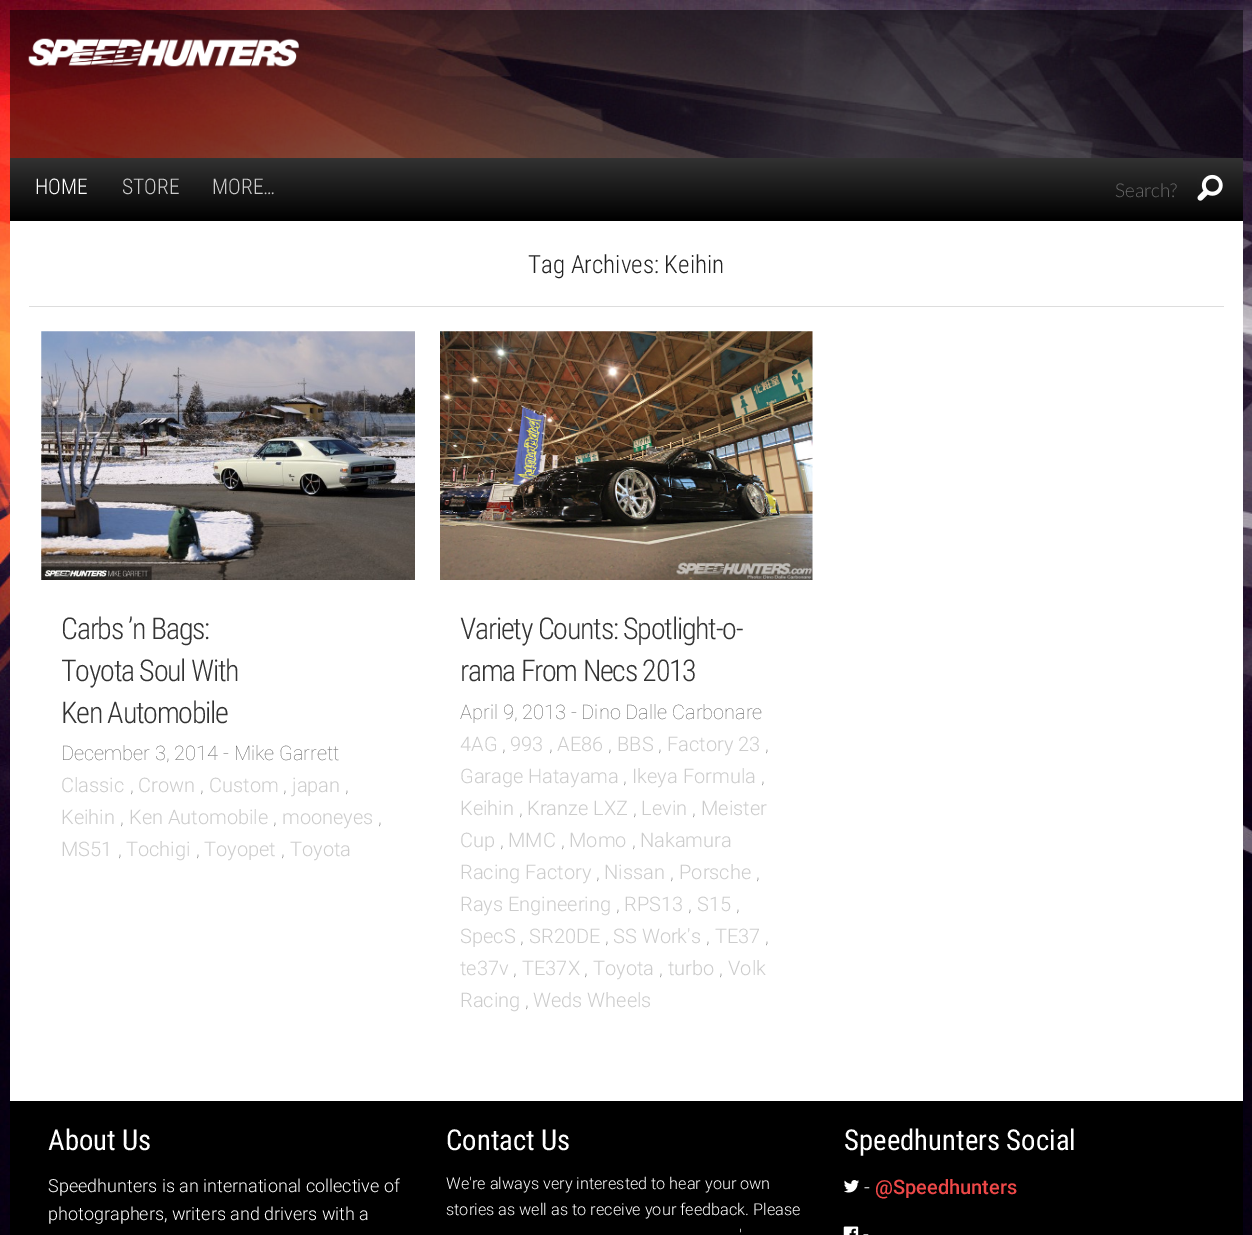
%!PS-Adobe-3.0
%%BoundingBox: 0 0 1252 1235
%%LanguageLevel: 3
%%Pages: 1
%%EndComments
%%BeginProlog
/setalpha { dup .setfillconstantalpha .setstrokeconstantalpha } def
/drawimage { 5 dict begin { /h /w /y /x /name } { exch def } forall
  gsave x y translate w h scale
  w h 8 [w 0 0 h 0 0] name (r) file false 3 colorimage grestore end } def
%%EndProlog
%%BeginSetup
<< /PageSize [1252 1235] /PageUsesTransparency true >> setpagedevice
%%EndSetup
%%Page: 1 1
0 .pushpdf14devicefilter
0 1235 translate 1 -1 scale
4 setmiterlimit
1 setgray
0 0 1252 1235 rectfill
(images/1.raw) 0 0 1252 1235 drawimage
0.5 setalpha
0 setgray
10 10 1233 148 rectfill
1 setalpha
(images/2.raw) 28 38 271 29 drawimage
gsave newpath 10 158 moveto 1243 158 lineto 1243 221 lineto 10 221 lineto closepath clip newpath
<< /ShadingType 2 /ColorSpace /DeviceRGB /Coords [626 157 626 221] /Extend [true true] /Function << /FunctionType 2 /Domain [0 1] /C0 [0.2 0.2 0.2] /C1 [0 0 0] /N 1 >> >> shfill grestore
(images/3.raw) 1197 174 26 27 drawimage
1 setgray
10 221 1233 880 rectfill
0.867 setgray
29 306 1195 1 rectfill
(images/4.raw) 41 331 374 249 drawimage
(images/5.raw) 440 331 373 249 drawimage
0 setgray
10 1101 1233 134 rectfill
(images/6.raw) 844 1180 15 13 drawimage
(images/7.raw) 843 1226 16 9 drawimage
/RobotoCondensed-Light [21.5 0 0 -21.5 0 0] selectfont
1 setgray
35 194 moveto (HOME) show
0.8 setgray
122 194 moveto (STORE) show
212 194 moveto (MORE…) show
/Lato-Light [19 0 0 -19 0 0] selectfont
0.4 setgray
1115 197 moveto (Search?) show
/RobotoCondensed-Light [25 0 0 -25 0 0] selectfont
0.133 setgray
528 273 moveto (Tag Archives: Keihin) show
/RobotoCondensed-Light [30 0 0 -30 0 0] selectfont
0.2 setgray
61 639 moveto -1.25 0 (Carbs ’n Bags:) ashow
61 681 moveto -1.25 0 (Toyota Soul With) ashow
61 723 moveto -1.25 0 (Ken Automobile) ashow
/Roboto-Thin [20 0 0 -20 0 0] selectfont
0.4 setgray
61 760 moveto (December 3, 2014 - Mike Garrett) show
/Roboto-Light [20 0 0 -20 0 0] selectfont
0.8 setgray
61 792 moveto (Classic) show
/Roboto-Thin [20 0 0 -20 0 0] selectfont
0.4 setgray
130 792 moveto (,) show
/Roboto-Light [20 0 0 -20 0 0] selectfont
0.8 setgray
138 792 moveto (Crown) show
/Roboto-Thin [20 0 0 -20 0 0] selectfont
0.4 setgray
200 792 moveto (,) show
/Roboto-Light [20 0 0 -20 0 0] selectfont
0.8 setgray
209 792 moveto (Custom) show
/Roboto-Thin [20 0 0 -20 0 0] selectfont
0.4 setgray
283 792 moveto (,) show
/Roboto-Light [20 0 0 -20 0 0] selectfont
0.8 setgray
292 792 moveto (japan) show
/Roboto-Thin [20 0 0 -20 0 0] selectfont
0.4 setgray
345 792 moveto (,) show
/Roboto-Light [20 0 0 -20 0 0] selectfont
0.8 setgray
61 824 moveto (Keihin) show
/Roboto-Thin [20 0 0 -20 0 0] selectfont
0.4 setgray
120 824 moveto (,) show
/Roboto-Light [20 0 0 -20 0 0] selectfont
0.8 setgray
129 824 moveto (Ken Automobile) show
/Roboto-Thin [20 0 0 -20 0 0] selectfont
0.4 setgray
273 824 moveto (,) show
/Roboto-Light [20 0 0 -20 0 0] selectfont
0.8 setgray
282 824 moveto (mooneyes) show
/Roboto-Thin [20 0 0 -20 0 0] selectfont
0.4 setgray
378 824 moveto (,) show
/Roboto-Light [20 0 0 -20 0 0] selectfont
0.8 setgray
61 856 moveto (MS51) show
/Roboto-Thin [20 0 0 -20 0 0] selectfont
0.4 setgray
118 856 moveto (,) show
/Roboto-Light [20 0 0 -20 0 0] selectfont
0.8 setgray
126 856 moveto (Tochigi) show
/Roboto-Thin [20 0 0 -20 0 0] selectfont
0.4 setgray
196 856 moveto (,) show
/Roboto-Light [20 0 0 -20 0 0] selectfont
0.8 setgray
204 856 moveto (Toyopet) show
/Roboto-Thin [20 0 0 -20 0 0] selectfont
0.4 setgray
281 856 moveto (,) show
/Roboto-Light [20 0 0 -20 0 0] selectfont
0.8 setgray
290 856 moveto (Toyota) show
/RobotoCondensed-Light [30 0 0 -30 0 0] selectfont
0.2 setgray
460 639 moveto -1.25 0 (Variety Counts: Spotlight-o-) ashow
460 681 moveto -1.25 0 (rama From Necs 2013) ashow
/Roboto-Thin [20 0 0 -20 0 0] selectfont
0.4 setgray
460 719 moveto (April 9, 2013 - Dino Dalle Carbonare) show
/Roboto-Light [20 0 0 -20 0 0] selectfont
0.8 setgray
460 751 moveto (4AG) show
/Roboto-Thin [20 0 0 -20 0 0] selectfont
0.4 setgray
502 751 moveto (,) show
/Roboto-Light [20 0 0 -20 0 0] selectfont
0.8 setgray
510 751 moveto (993) show
/Roboto-Thin [20 0 0 -20 0 0] selectfont
0.4 setgray
549 751 moveto (,) show
/Roboto-Light [20 0 0 -20 0 0] selectfont
0.8 setgray
557 751 moveto (AE86) show
/Roboto-Thin [20 0 0 -20 0 0] selectfont
0.4 setgray
608 751 moveto (,) show
/Roboto-Light [20 0 0 -20 0 0] selectfont
0.8 setgray
617 751 moveto (BBS) show
/Roboto-Thin [20 0 0 -20 0 0] selectfont
0.4 setgray
658 751 moveto (,) show
/Roboto-Light [20 0 0 -20 0 0] selectfont
0.8 setgray
667 751 moveto (Factory 23) show
/Roboto-Thin [20 0 0 -20 0 0] selectfont
0.4 setgray
765 751 moveto (,) show
/Roboto-Light [20 0 0 -20 0 0] selectfont
0.8 setgray
460 783 moveto (Garage Hatayama) show
/Roboto-Thin [20 0 0 -20 0 0] selectfont
0.4 setgray
623 783 moveto (,) show
/Roboto-Light [20 0 0 -20 0 0] selectfont
0.8 setgray
632 783 moveto (Ikeya Formula) show
/Roboto-Thin [20 0 0 -20 0 0] selectfont
0.4 setgray
761 783 moveto (,) show
/Roboto-Light [20 0 0 -20 0 0] selectfont
0.8 setgray
460 815 moveto (Keihin) show
/Roboto-Thin [20 0 0 -20 0 0] selectfont
0.4 setgray
519 815 moveto (,) show
/Roboto-Light [20 0 0 -20 0 0] selectfont
0.8 setgray
527 815 moveto (Kranze LXZ) show
/Roboto-Thin [20 0 0 -20 0 0] selectfont
0.4 setgray
633 815 moveto (,) show
/Roboto-Light [20 0 0 -20 0 0] selectfont
0.8 setgray
641 815 moveto (Levin) show
/Roboto-Thin [20 0 0 -20 0 0] selectfont
0.4 setgray
692 815 moveto (,) show
/Roboto-Light [20 0 0 -20 0 0] selectfont
0.8 setgray
701 815 moveto (Meister) show
460 847 moveto (Cup) show
/Roboto-Thin [20 0 0 -20 0 0] selectfont
0.4 setgray
500 847 moveto (,) show
/Roboto-Light [20 0 0 -20 0 0] selectfont
0.8 setgray
508 847 moveto (MMC) show
/Roboto-Thin [20 0 0 -20 0 0] selectfont
0.4 setgray
561 847 moveto (,) show
/Roboto-Light [20 0 0 -20 0 0] selectfont
0.8 setgray
569 847 moveto (Momo) show
/Roboto-Thin [20 0 0 -20 0 0] selectfont
0.4 setgray
632 847 moveto (,) show
/Roboto-Light [20 0 0 -20 0 0] selectfont
0.8 setgray
640 847 moveto (Nakamura) show
460 879 moveto (Racing Factory) show
/Roboto-Thin [20 0 0 -20 0 0] selectfont
0.4 setgray
596 879 moveto (,) show
/Roboto-Light [20 0 0 -20 0 0] selectfont
0.8 setgray
604 879 moveto (Nissan) show
/Roboto-Thin [20 0 0 -20 0 0] selectfont
0.4 setgray
670 879 moveto (,) show
/Roboto-Light [20 0 0 -20 0 0] selectfont
0.8 setgray
679 879 moveto (Porsche) show
/Roboto-Thin [20 0 0 -20 0 0] selectfont
0.4 setgray
756 879 moveto (,) show
/Roboto-Light [20 0 0 -20 0 0] selectfont
0.8 setgray
460 911 moveto (Rays Engineering) show
/Roboto-Thin [20 0 0 -20 0 0] selectfont
0.4 setgray
616 911 moveto (,) show
/Roboto-Light [20 0 0 -20 0 0] selectfont
0.8 setgray
624 911 moveto (RPS13) show
/Roboto-Thin [20 0 0 -20 0 0] selectfont
0.4 setgray
688 911 moveto (,) show
/Roboto-Light [20 0 0 -20 0 0] selectfont
0.8 setgray
697 911 moveto (S15) show
/Roboto-Thin [20 0 0 -20 0 0] selectfont
0.4 setgray
736 911 moveto (,) show
/Roboto-Light [20 0 0 -20 0 0] selectfont
0.8 setgray
460 943 moveto (SpecS) show
/Roboto-Thin [20 0 0 -20 0 0] selectfont
0.4 setgray
520 943 moveto (,) show
/Roboto-Light [20 0 0 -20 0 0] selectfont
0.8 setgray
529 943 moveto (SR20DE) show
/Roboto-Thin [20 0 0 -20 0 0] selectfont
0.4 setgray
605 943 moveto (,) show
/Roboto-Light [20 0 0 -20 0 0] selectfont
0.8 setgray
613 943 moveto (SS Work's) show
/Roboto-Thin [20 0 0 -20 0 0] selectfont
0.4 setgray
706 943 moveto (,) show
/Roboto-Light [20 0 0 -20 0 0] selectfont
0.8 setgray
715 943 moveto (TE37) show
/Roboto-Thin [20 0 0 -20 0 0] selectfont
0.4 setgray
765 943 moveto (,) show
/Roboto-Light [20 0 0 -20 0 0] selectfont
0.8 setgray
460 975 moveto (te37v) show
/Roboto-Thin [20 0 0 -20 0 0] selectfont
0.4 setgray
513 975 moveto (,) show
/Roboto-Light [20 0 0 -20 0 0] selectfont
0.8 setgray
522 975 moveto (TE37X) show
/Roboto-Thin [20 0 0 -20 0 0] selectfont
0.4 setgray
584 975 moveto (,) show
/Roboto-Light [20 0 0 -20 0 0] selectfont
0.8 setgray
593 975 moveto (Toyota) show
/Roboto-Thin [20 0 0 -20 0 0] selectfont
0.4 setgray
659 975 moveto (,) show
/Roboto-Light [20 0 0 -20 0 0] selectfont
0.8 setgray
668 975 moveto (turbo) show
/Roboto-Thin [20 0 0 -20 0 0] selectfont
0.4 setgray
719 975 moveto (,) show
/Roboto-Light [20 0 0 -20 0 0] selectfont
0.8 setgray
728 975 moveto (Volk) show
460 1007 moveto (Racing) show
/Roboto-Thin [20 0 0 -20 0 0] selectfont
0.4 setgray
525 1007 moveto (,) show
/Roboto-Light [20 0 0 -20 0 0] selectfont
0.8 setgray
533 1007 moveto (Weds Wheels) show
/RobotoCondensed-Regular [28.75 0 0 -28.75 0 0] selectfont
1 setgray
48 1150 moveto (About Us) show
/Roboto-Light [18 0 0 -18 0 0] selectfont
48 1192 moveto (Speedhunters is an international collective of) show
48 1220 moveto (photographers, writers and drivers with a) show
/RobotoCondensed-Regular [28.75 0 0 -28.75 0 0] selectfont
446 1150 moveto (Contact Us) show
/Roboto-Light [16.25 0 0 -16.25 0 0] selectfont
446 1189 moveto (We're always very interested to hear your own) show
446 1215 moveto (stories as well as to receive your feedback. Please) show
739 1241 moveto (') show
/RobotoCondensed-Regular [28.75 0 0 -28.75 0 0] selectfont
844 1150 moveto (Speedhunters Social) show
/Roboto-Light [20 0 0 -20 0 0] selectfont
864 1194 moveto (-) show
/Roboto-Medium [20 0 0 -20 0 0] selectfont
0.933 0.282 0.282 setrgbcolor
875 1194 moveto (@Speedhunters) show
/Roboto-Light [20 0 0 -20 0 0] selectfont
1 setgray
863 1241 moveto (-) show
.poppdf14devicefilter showpage
%%EOF
